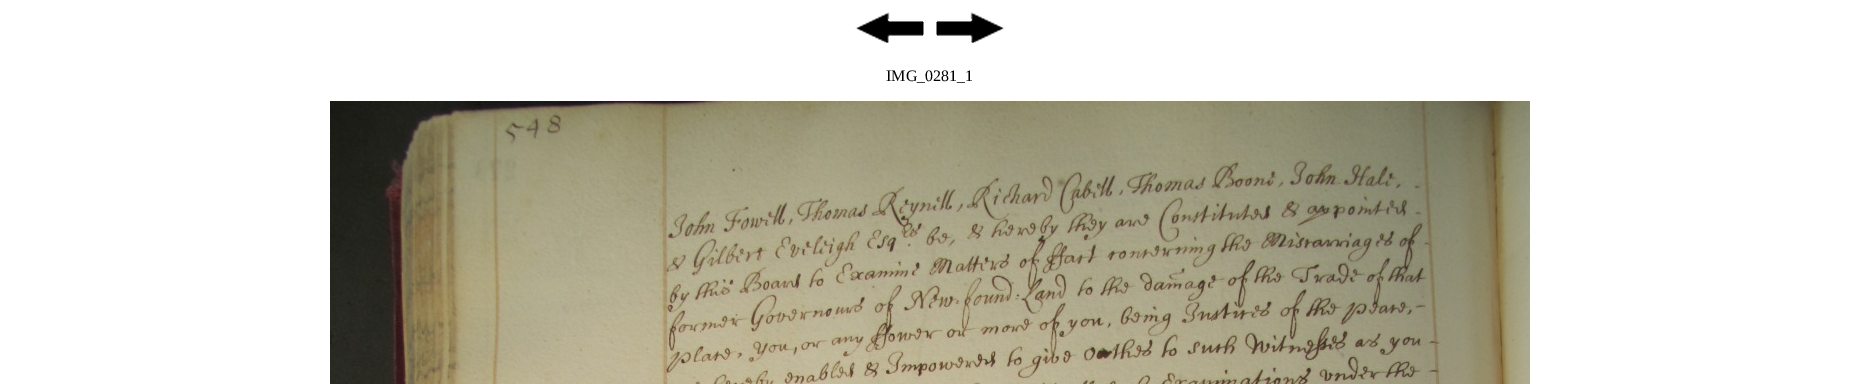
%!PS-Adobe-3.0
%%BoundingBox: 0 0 1859 384
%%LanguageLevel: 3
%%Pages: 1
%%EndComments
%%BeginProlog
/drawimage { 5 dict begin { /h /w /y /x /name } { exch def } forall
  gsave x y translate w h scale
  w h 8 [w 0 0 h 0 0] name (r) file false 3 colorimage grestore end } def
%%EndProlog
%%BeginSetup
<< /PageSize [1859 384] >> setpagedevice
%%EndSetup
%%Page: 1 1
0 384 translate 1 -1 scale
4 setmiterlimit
1 setgray
0 0 1859 384 rectfill
(images/1.raw) 855 12 69 31 drawimage
(images/2.raw) 936 12 69 31 drawimage
(images/3.raw) 330 101 1200 283 drawimage
/LiberationSerif-Regular [16 0 0 -16 0 0] selectfont
0 setgray
886 81 moveto (IMG_0281_1) show
showpage
%%EOF
